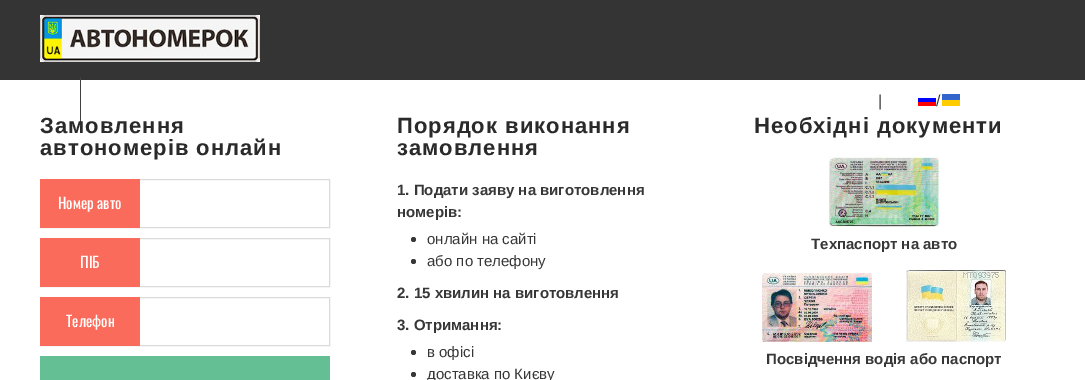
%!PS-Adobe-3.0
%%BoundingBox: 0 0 1085 380
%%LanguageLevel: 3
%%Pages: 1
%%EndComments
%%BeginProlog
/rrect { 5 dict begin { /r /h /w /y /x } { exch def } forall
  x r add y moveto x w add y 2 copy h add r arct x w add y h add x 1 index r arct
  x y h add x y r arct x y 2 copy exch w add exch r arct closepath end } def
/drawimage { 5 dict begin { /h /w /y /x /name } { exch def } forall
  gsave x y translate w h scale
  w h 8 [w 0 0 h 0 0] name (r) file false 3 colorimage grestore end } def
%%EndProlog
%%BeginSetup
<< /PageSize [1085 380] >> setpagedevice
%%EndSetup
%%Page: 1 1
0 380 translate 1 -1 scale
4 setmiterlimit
1 setgray
0 0 1085 380 rectfill
0.208 0.204 0.204 setrgbcolor
0 0 1085 80 rectfill
(images/1.raw) 40 15 220 47 drawimage
0.251 setgray
80 77 1 48 rectfill
(images/2.raw) 918 98 18 8 drawimage
(images/3.raw) 942 94 18 12 drawimage
0.855 setgray
40.5 179.5 289 48 rectstroke
0.98 0.42 0.357 setrgbcolor
40 179 100 49 rectfill
0.855 setgray
40.5 238.5 289 48 rectstroke
0.98 0.42 0.357 setrgbcolor
40 238 100 49 rectfill
0.855 setgray
40.5 297.5 289 48 rectstroke
0.98 0.42 0.357 setrgbcolor
40 297 100 49 rectfill
0.396 0.749 0.584 setrgbcolor
40 356 290 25 1 rrect fill
0.22 0.216 0.216 setrgbcolor
newpath 413.5 239.5 2.5 0 360 arc closepath fill
newpath 413.5 261.5 2.5 0 360 arc closepath fill
newpath 413.5 352.5 2.5 0 360 arc closepath fill
newpath 413.5 374.5 2.5 0 360 arc closepath fill
(images/4.raw) 829 157 110 70 drawimage
(images/5.raw) 762 273 110 69 drawimage
(images/6.raw) 906 270 100 72 drawimage
/LiberationSans-Regular [16 0 0 -16 0 0] selectfont
878 106 moveto 1 0 (|) ashow
936 106 moveto 1 0 (/) ashow
/LiberationSans-Bold [22 0 0 -22 0 0] selectfont
0.165 setgray
40 133 moveto 1 0 (Замовлення) ashow
40 155 moveto 1 0 (автономерів онлайн) ashow
/Oswald-Regular [15 0 0 -15 0 0] selectfont
1 setgray
58 209 moveto (Номер авто) show
80 268 moveto (ПІБ) show
66 327 moveto (Телефон) show
/LiberationSans-Bold [22 0 0 -22 0 0] selectfont
0.165 setgray
397 133 moveto 1 0 (Порядок виконання) ashow
397 155 moveto 1 0 (замовлення) ashow
/LiberationSans-Bold [15 0 0 -15 0 0] selectfont
0.22 0.216 0.216 setrgbcolor
397 195 moveto (1. Подати заяву на виготовлення) show
397 217 moveto (номерів:) show
/LiberationSans-Regular [15 0 0 -15 0 0] selectfont
427 244 moveto (онлайн на сайті) show
427 266 moveto (або по телефону) show
/LiberationSans-Bold [15 0 0 -15 0 0] selectfont
397 298 moveto (2. 15 хвилин на виготовлення) show
397 330 moveto (3. Отримання:) show
/LiberationSans-Regular [15 0 0 -15 0 0] selectfont
427 357 moveto (в офісі) show
427 379 moveto (доставка по Києву) show
/LiberationSans-Bold [22 0 0 -22 0 0] selectfont
0.165 setgray
754 133 moveto 1 0 (Необхідні документи) ashow
/LiberationSans-Bold [15 0 0 -15 0 0] selectfont
0.22 0.216 0.216 setrgbcolor
811 249 moveto (Техпаспорт на авто) show
766 364 moveto (Посвідчення водія або паспорт) show
showpage
%%EOF
